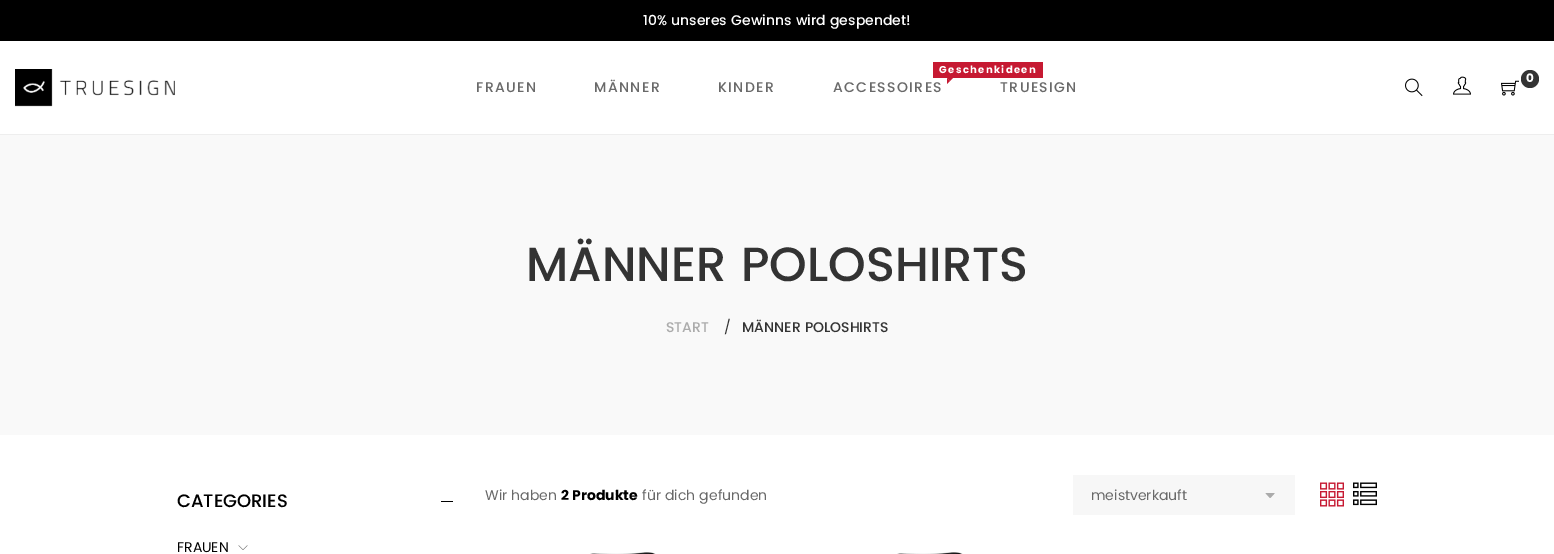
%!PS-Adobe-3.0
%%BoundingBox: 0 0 1554 554
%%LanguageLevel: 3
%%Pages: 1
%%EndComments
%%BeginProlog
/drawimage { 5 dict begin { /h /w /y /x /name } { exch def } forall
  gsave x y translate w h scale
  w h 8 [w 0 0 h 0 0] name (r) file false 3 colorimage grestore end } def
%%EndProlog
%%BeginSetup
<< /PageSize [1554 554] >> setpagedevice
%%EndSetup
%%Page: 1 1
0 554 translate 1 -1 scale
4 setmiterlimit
1 setgray
0 0 1554 554 rectfill
0.933 setgray
0 134 1554 1 rectfill
0 setgray
0 0 1554 41 rectfill
(images/1.raw) 15 69 160 38 drawimage
0.776 0.098 0.196 setrgbcolor
933 62 110 16 rectfill
newpath 947 78 moveto 953 78 lineto 950 81 lineto closepath fill
newpath 947 84 moveto 947 78 lineto 950 81 lineto closepath fill
(images/2.raw) 1405 78 18 19 drawimage
(images/3.raw) 1453 76 18 19 drawimage
0.2 setgray
newpath 1530 79 9 0 360 arc closepath fill
(images/4.raw) 1501 80 18 16 drawimage
0.976 setgray
0 135 1554 300 rectfill
0 setgray
441 501 12 1 rectfill
(images/5.raw) 238 545 10 5 drawimage
0.969 setgray
1073 475 222 40 rectfill
(images/6.raw) 1265 493 10 5 drawimage
(images/7.raw) 1320 482 24 25 drawimage
(images/8.raw) 1353 482 24 24 drawimage
(images/9.raw) 590 552 66 2 drawimage
(images/10.raw) 897 552 66 2 drawimage
/Poppins-Medium [14 0 0 -14 0 0] selectfont
1 setgray
643 25 moveto (10% unseres Gewinns wird gespendet!) show
0.412 setgray
476 92 moveto 1.4 0 (FRAUEN) ashow
594 92 moveto 1.4 0 (MÄNNER) ashow
718 92 moveto 1.4 0 (KINDER) ashow
/Poppins-Bold [10 0 0 -10 0 0] selectfont
1 setgray
939 73 moveto 1.4 0 (Geschenkideen) ashow
/Poppins-Medium [14 0 0 -14 0 0] selectfont
0.412 setgray
833 92 moveto 1.4 0 (ACCESSOIRES) ashow
1000 92 moveto 1.4 0 (TRUESIGN) ashow
/Poppins-Bold [12 0 0 -12 0 0] selectfont
1 setgray
1526 82 moveto (0) show
/Poppins-Medium [48 0 0 -48 0 0] selectfont
0.2 setgray
526 281 moveto (MÄNNER POLOSHIRTS) show
/Poppins-Medium [14 0 0 -14 0 0] selectfont
0.671 setgray
666 332 moveto (START) show
/Poppins-Regular [14 0 0 -14 0 0] selectfont
0.2 setgray
724 332 moveto (/) show
/Poppins-Medium [14 0 0 -14 0 0] selectfont
742 332 moveto (MÄNNER POLOSHIRTS) show
/Poppins-Medium [18 0 0 -18 0 0] selectfont
0 setgray
177 507 moveto (CATEGORIES) show
/Poppins-Regular [14 0 0 -14 0 0] selectfont
177 552 moveto (FRAUEN) show
0.412 setgray
485 500 moveto (Wir haben) show
/Poppins-Bold [14 0 0 -14 0 0] selectfont
0 setgray
561 500 moveto (2 Produkte) show
/Poppins-Regular [14 0 0 -14 0 0] selectfont
0.412 setgray
642 500 moveto (für dich gefunden) show
1091 500 moveto (meistverkauft) show
showpage
%%EOF
